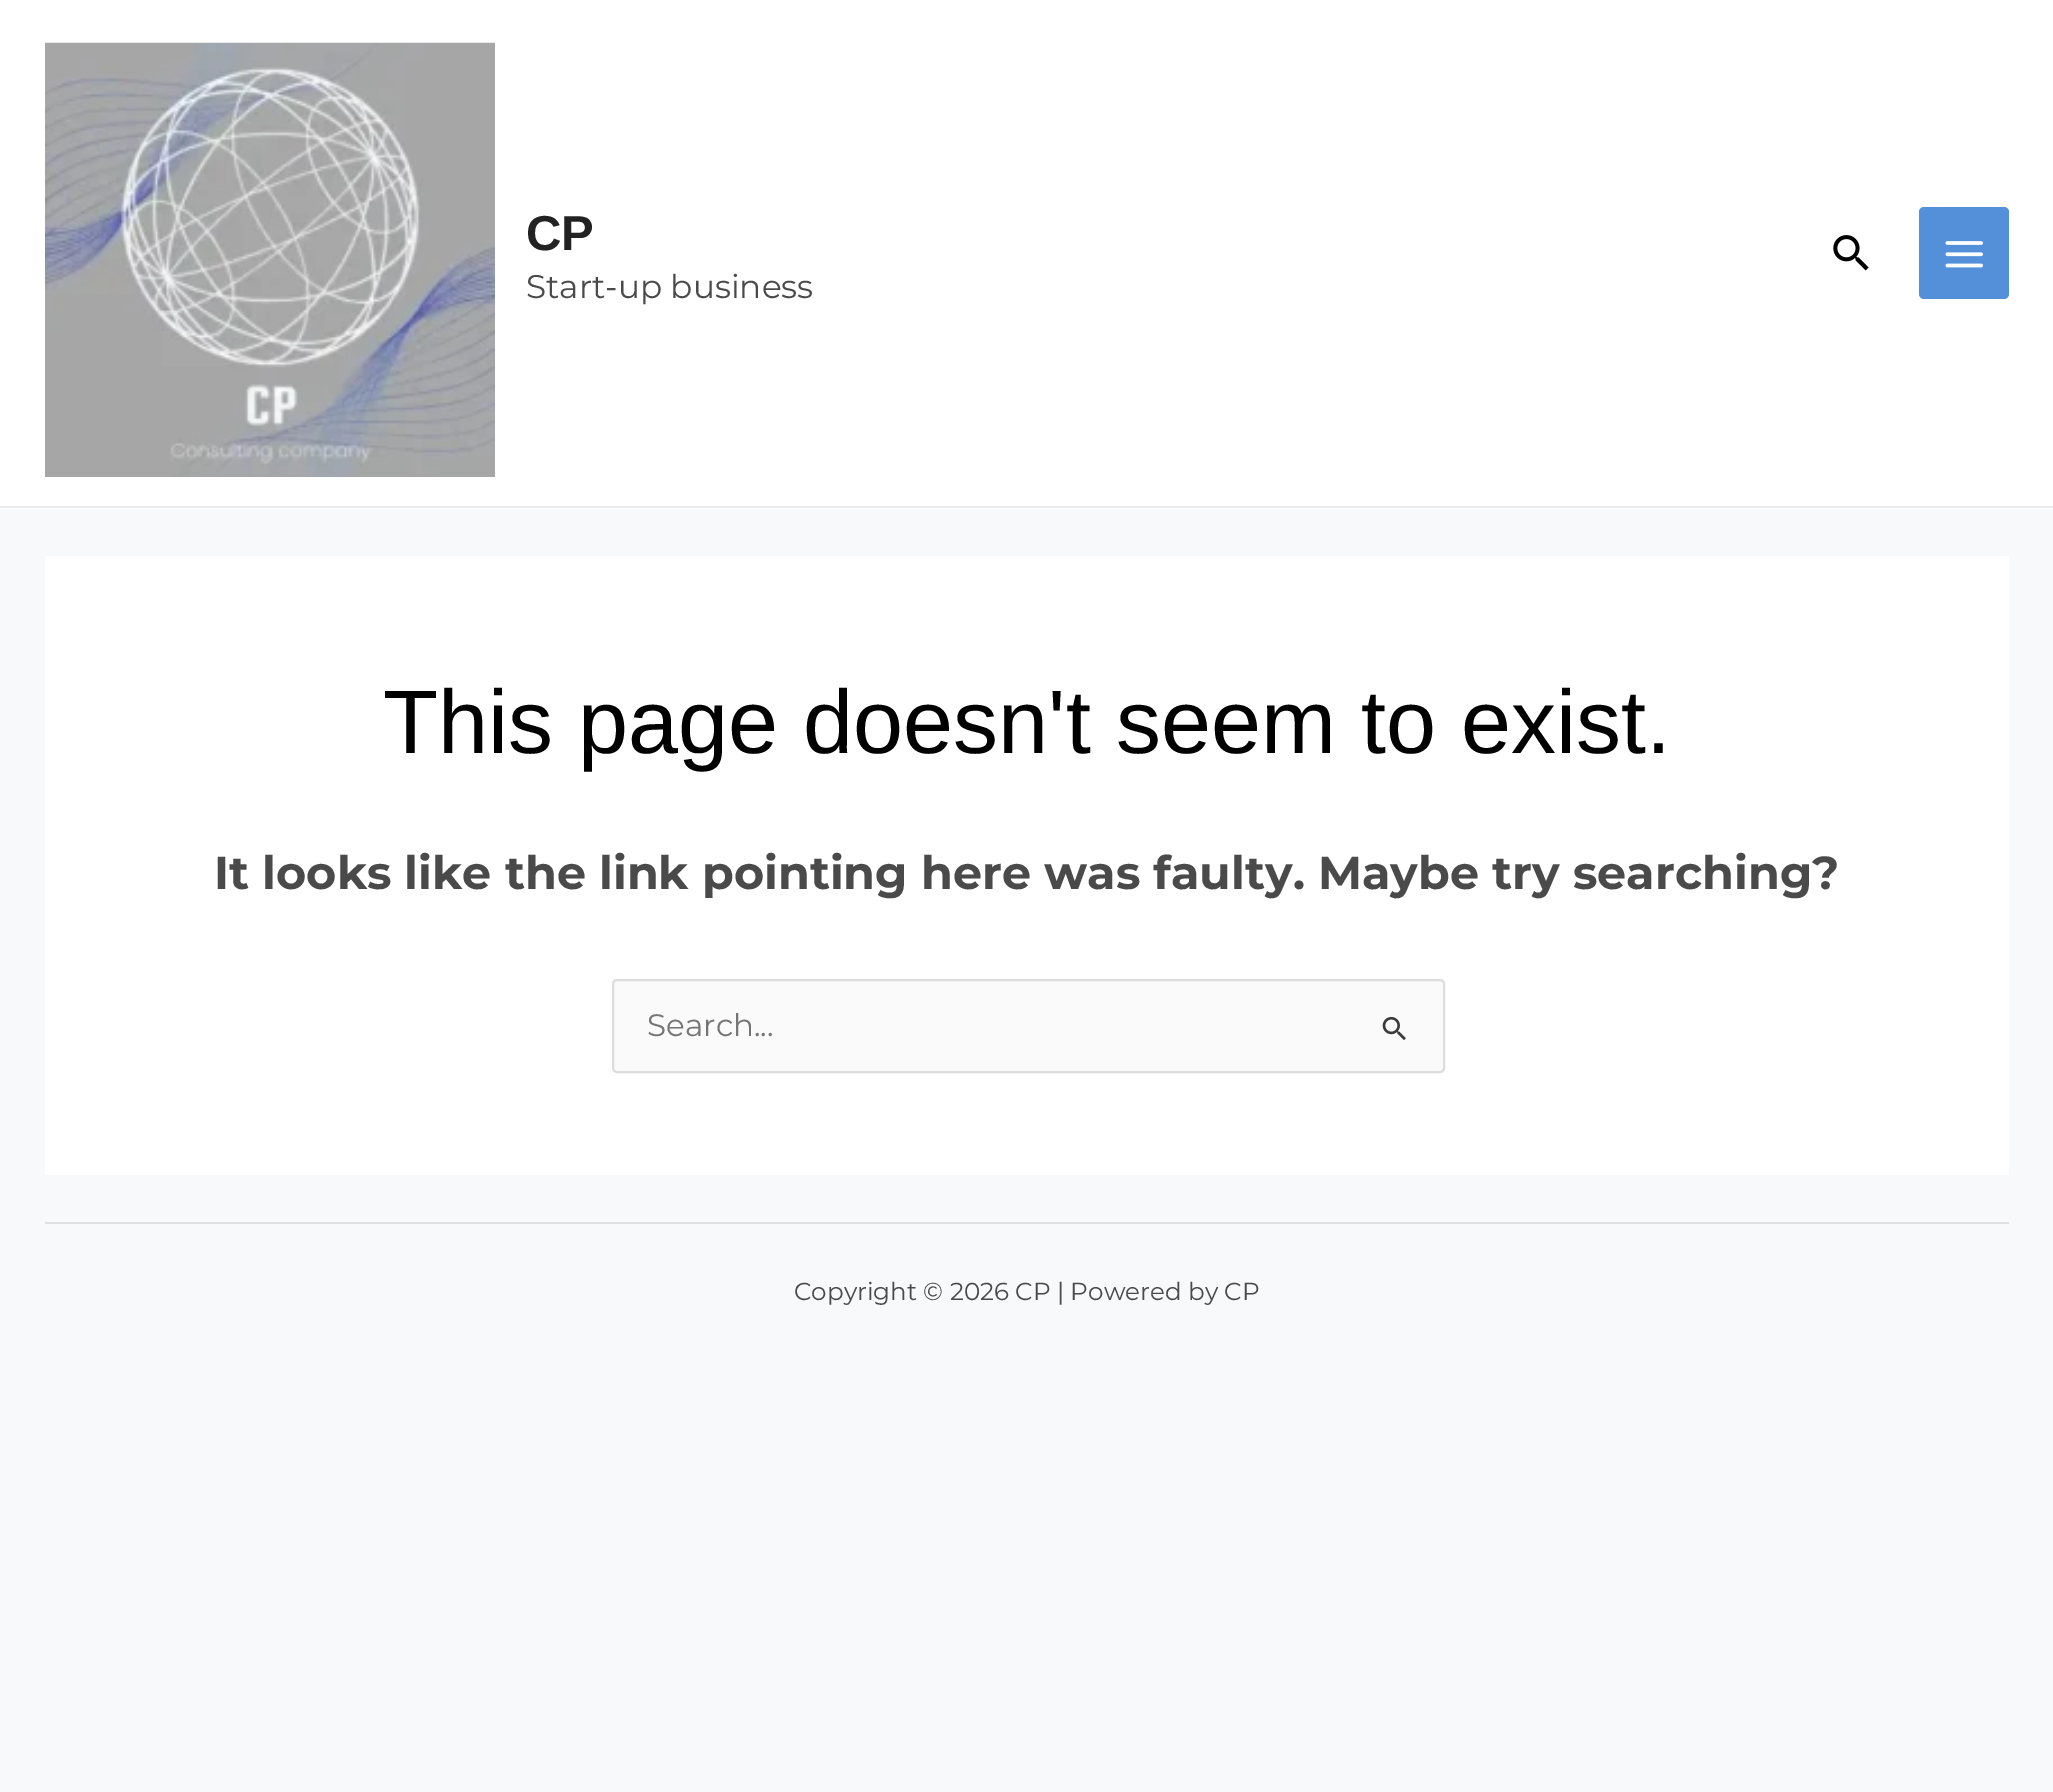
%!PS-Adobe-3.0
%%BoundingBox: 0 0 2053 1792
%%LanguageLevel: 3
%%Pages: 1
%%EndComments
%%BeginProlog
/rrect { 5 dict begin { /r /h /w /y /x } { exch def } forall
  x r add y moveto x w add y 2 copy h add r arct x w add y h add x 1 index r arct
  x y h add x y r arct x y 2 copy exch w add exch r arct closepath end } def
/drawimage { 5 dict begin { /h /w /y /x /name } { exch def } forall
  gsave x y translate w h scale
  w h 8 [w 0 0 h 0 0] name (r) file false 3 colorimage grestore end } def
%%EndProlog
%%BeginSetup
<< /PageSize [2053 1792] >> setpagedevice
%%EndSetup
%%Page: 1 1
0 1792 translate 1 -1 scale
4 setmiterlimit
0.969 0.976 0.984 setrgbcolor
0 0 2053 1792 rectfill
1 setgray
0 0 2053 509 rectfill
0.918 setgray
0 506 2053 2 rectfill
(images/1.raw) 45 42 450 435 drawimage
(images/2.raw) 1833 235 36 36 drawimage
0.325 0.565 0.851 setrgbcolor
1919 207 90 92 5 rrect fill
(images/3.raw) 1945 241 38 27 drawimage
1 setgray
45 556 1964 619 rectfill
0.98 setgray
613 980 831 92 4 rrect gsave fill grestore
0.867 setgray
2 setlinewidth
stroke
(images/4.raw) 1382 1016 24 24 drawimage
0.871 0.878 0.886 setrgbcolor
45 1222 1964 2 rectfill
/LiberationSans-Bold [49 0 0 -49 0 0] selectfont
0.133 setgray
526 250 moveto (CP) show
/Montserrat-Regular [32.75 0 0 -32.75 0 0] selectfont
0.29 setgray
526 298 moveto (Start-up business) show
/LiberationSans-Regular [90 0 0 -90 0 0] selectfont
0 setgray
383 753 moveto (This page doesn't seem to exist.) show
/Montserrat-Bold [46.15 0 0 -46.15 0 0] selectfont
0.29 setgray
214 889 moveto (It looks like the link pointing here was faulty. Maybe try searching?) show
/Montserrat-Regular [31 0 0 -31 0 0] selectfont
0.459 setgray
647 1036 moveto (Search...) show
/Montserrat-Regular [24.6 0 0 -24.6 0 0] selectfont
0.29 setgray
794 1300 moveto (Copyright © 2026 CP | Powered by CP) show
showpage
%%EOF
